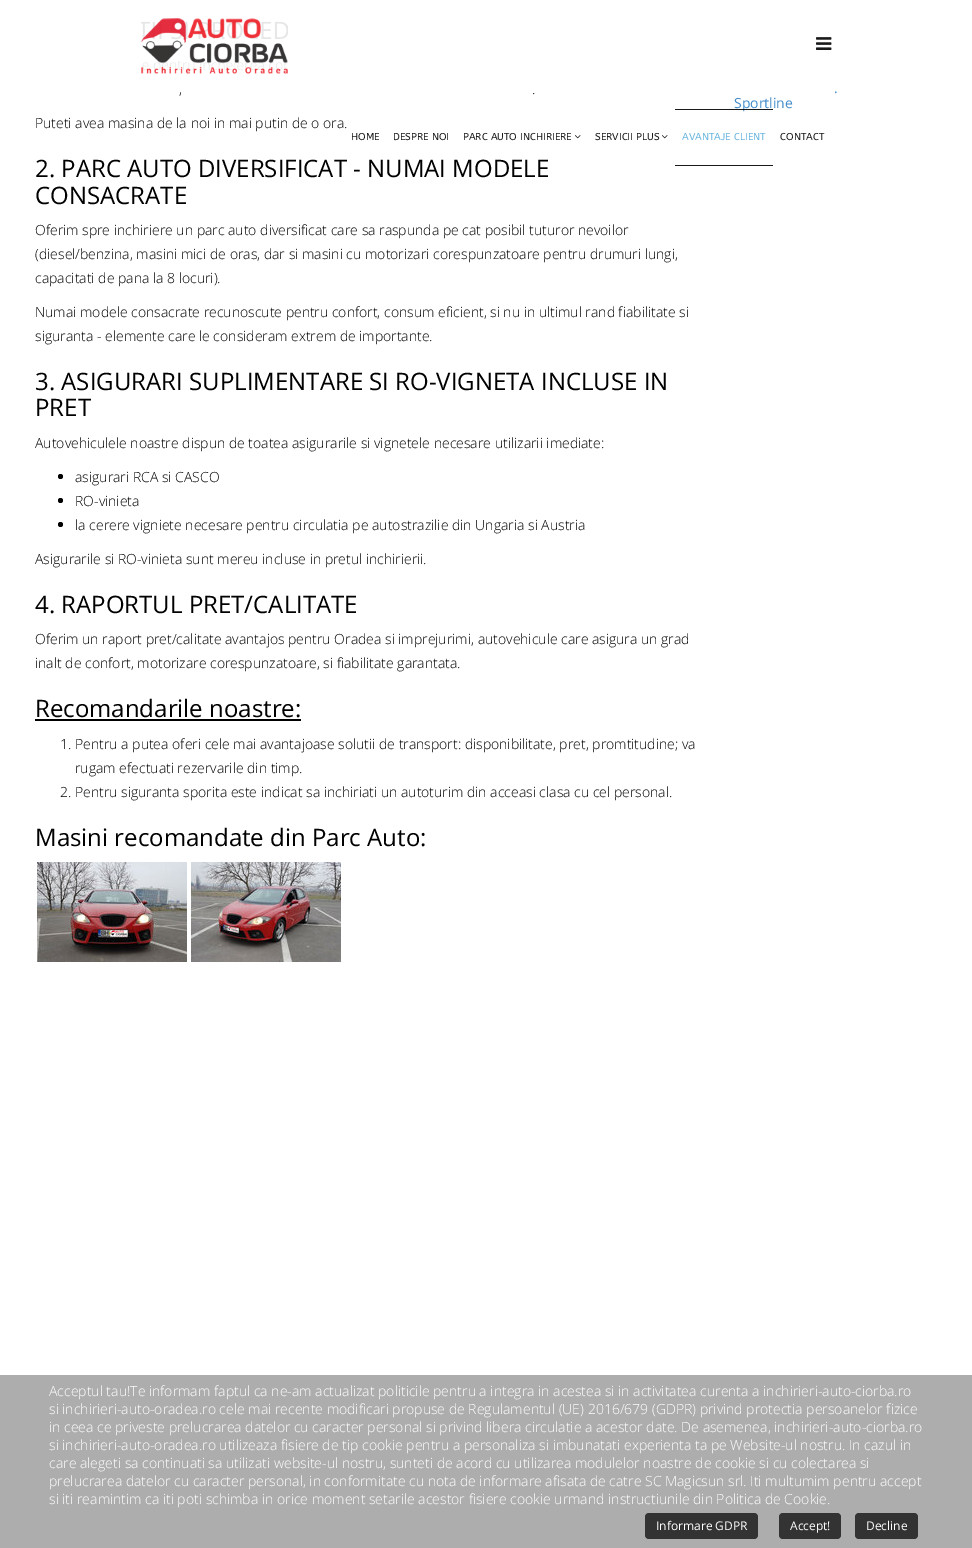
%!PS-Adobe-3.0
%%BoundingBox: 0 0 972 1548
%%LanguageLevel: 3
%%Pages: 1
%%EndComments
%%BeginProlog
/setalpha { dup .setfillconstantalpha .setstrokeconstantalpha } def
/rrect { 5 dict begin { /r /h /w /y /x } { exch def } forall
  x r add y moveto x w add y 2 copy h add r arct x w add y h add x 1 index r arct
  x y h add x y r arct x y 2 copy exch w add exch r arct closepath end } def
/drawimage { 5 dict begin { /h /w /y /x /name } { exch def } forall
  gsave x y translate w h scale
  w h 8 [w 0 0 h 0 0] name (r) file false 3 colorimage grestore end } def
%%EndProlog
%%BeginSetup
<< /PageSize [972 1548] /PageUsesTransparency true >> setpagedevice
%%EndSetup
%%Page: 1 1
0 .pushpdf14devicefilter
0 1548 translate 1 -1 scale
4 setmiterlimit
1 setgray
0 0 972 1548 rectfill
0 setgray
newpath 60.5 476.5 2.5 0 360 arc closepath fill
newpath 60.5 500.5 2.5 0 360 arc closepath fill
newpath 60.5 524.5 2.5 0 360 arc closepath fill
35 719 266 2 rectfill
(images/1.raw) 37 862 150 100 drawimage
(images/2.raw) 191 862 150 100 drawimage
(images/3.raw) 141 18 147 56 drawimage
(images/4.raw) 816 37 16 13 drawimage
(images/5.raw) 575 135 6 4 drawimage
(images/5.raw) 662 135 6 4 drawimage
0.102 setgray
675 165 98 1 rectfill
0.678 setgray
0 1375 972 173 rectfill
0.2 setgray
645 1513 113 26 4 rrect fill
779 1513 62 26 4 rrect fill
855 1513 63 26 4 rrect fill
/OpenSans-Light [14 0 0 -14 0 0] selectfont
0 setgray
179 94 moveto (,) show
532 94 moveto (.) show
35 128 moveto (Puteti avea masina de la noi in mai putin de o ora.) show
/OpenSans-Regular [24 0 0 -24 0 0] selectfont
35 177 moveto (2. PARC AUTO DIVERSIFICAT - NUMAI MODELE) show
35 204 moveto (CONSACRATE) show
/OpenSans-Light [14 0 0 -14 0 0] selectfont
35 235 moveto (Oferim spre inchiriere un parc auto diversificat care sa raspunda pe cat posibil tuturor nevoilor) show
35 259 moveto (\(diesel/benzina, masini mici de oras, dar si masini cu motorizari corespunzatoare pentru drumuri lungi,) show
35 283 moveto (capacitati de pana la 8 locuri\).) show
35 317 moveto (Numai modele consacrate recunoscute pentru confort, consum eficient, si nu in ultimul rand fiabilitate si) show
35 341 moveto (siguranta - elemente care le consideram extrem de importante.) show
/OpenSans-Regular [24 0 0 -24 0 0] selectfont
35 390 moveto (3. ASIGURARI SUPLIMENTARE SI RO-VIGNETA INCLUSE IN) show
35 416 moveto (PRET) show
/OpenSans-Light [14 0 0 -14 0 0] selectfont
35 448 moveto (Autovehiculele noastre dispun de toatea asigurarile si vignetele necesare utilizarii imediate:) show
75 482 moveto (asigurari RCA si CASCO) show
75 506 moveto (RO-vinieta) show
75 530 moveto (la cerere vigniete necesare pentru circulatia pe autostrazilie din Ungaria si Austria) show
35 564 moveto (Asigurarile si RO-vinieta sunt mereu incluse in pretul inchirierii.) show
/OpenSans-Regular [24 0 0 -24 0 0] selectfont
35 613 moveto (4. RAPORTUL PRET/CALITATE) show
/OpenSans-Light [14 0 0 -14 0 0] selectfont
35 644 moveto (Oferim un raport pret/calitate avantajos pentru Oradea si imprejurimi, autovehicule care asigura un grad) show
35 668 moveto (inalt de confort, motorizare corespunzatoare, si fiabilitate garantata.) show
/OpenSans-Regular [24 0 0 -24 0 0] selectfont
35 717 moveto (Recomandarile noastre:) show
/OpenSans-Light [14 0 0 -14 0 0] selectfont
60 749 moveto (1. Pentru a putea oferi cele mai avantajoase solutii de transport: disponibilitate, pret, promtitudine; va) show
75 773 moveto (rugam efectuati rezervarile din timp.) show
60 797 moveto (2. Pentru siguranta sporita este indicat sa inchiriati un autoturim din acceasi clasa cu cel personal.) show
/OpenSans-Regular [24 0 0 -24 0 0] selectfont
35 846 moveto (Masini recomandate din Parc Auto:) show
/OpenSans-Regular [14 0 0 -14 0 0] selectfont
0.259 0.545 0.792 setrgbcolor
834 93 moveto (.) show
734 108 moveto (Sportline) show
/ABeeZee-Regular [10 0 0 -10 0 0] selectfont
0.102 setgray
351 140 moveto (HOME) show
393 140 moveto (DESPRE NOI) show
463 140 moveto (PARC AUTO INCHIRIERE) show
595 140 moveto (SERVICII PLUS) show
0.9 setalpha
0 setgray
675 109 98 1 rectfill
1 setalpha
0.42 0.71 0.878 setrgbcolor
682 140 moveto (AVANTAJE CLIENT) show
0.102 setgray
780 140 moveto (CONTACT) show
/OpenSans-Light [14 0 0 -14 0 0] selectfont
1 setgray
49 1396 moveto (Acceptul tau!Te informam faptul ca ne-am actualizat politicile pentru a integra in acestea si in activitatea curenta a inchirieri-auto-ciorba.ro) show
49 1414 moveto (si inchirieri-auto-oradea.ro cele mai recente modificari propuse de Regulamentul \(UE\) 2016/679 \(GDPR\) privind protectia persoanelor fizice) show
49 1432 moveto (in ceea ce priveste prelucrarea datelor cu caracter personal si privind libera circulatie a acestor date. De asemenea, inchirieri-auto-ciorba.ro) show
49 1450 moveto (si inchirieri-auto-oradea.ro utilizeaza fisiere de tip cookie pentru a personaliza si imbunatati experienta ta pe Website-ul nostru. In cazul in) show
49 1468 moveto (care alegeti sa continuati sa utilizati website-ul nostru, sunteti de acord cu utilizarea modulelor noastre de cookie si cu colectarea si) show
49 1486 moveto (prelucrarea datelor cu caracter personal, in conformitate cu nota de informare afisata de catre SC Magicsun srl. Iti multumim pentru accept) show
49 1504 moveto (si iti reamintim ca iti poti schimba in orice moment setarile acestor fisiere cookie urmand instructiunile din Politica de Cookie.) show
/OpenSans-Regular [12 0 0 -12 0 0] selectfont
656 1530 moveto (Informare GDPR) show
790 1530 moveto (Accept!) show
866 1530 moveto (Decline) show
.poppdf14devicefilter showpage
%%EOF
